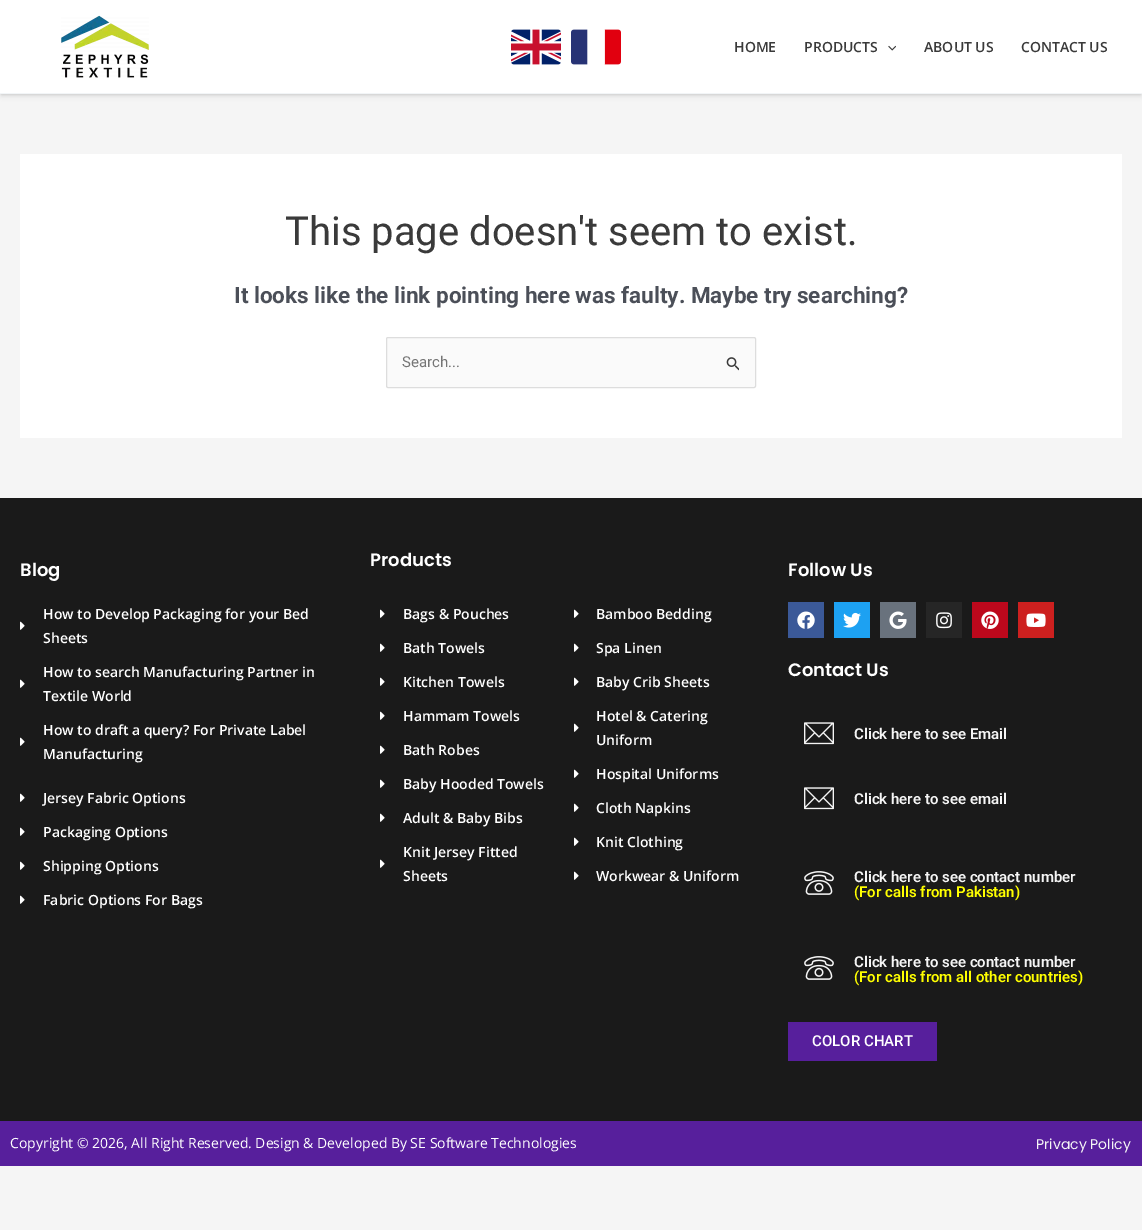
%!PS-Adobe-3.0
%%BoundingBox: 0 0 1142 1230
%%LanguageLevel: 3
%%Pages: 1
%%EndComments
%%BeginProlog
/setalpha { dup .setfillconstantalpha .setstrokeconstantalpha } def
/rrect { 5 dict begin { /r /h /w /y /x } { exch def } forall
  x r add y moveto x w add y 2 copy h add r arct x w add y h add x 1 index r arct
  x y h add x y r arct x y 2 copy exch w add exch r arct closepath end } def
/softshadow { 12 dict begin { /a /b /q /h /w /y /x } { exch def } forall gsave /was 0 def
  9 -2 -9 { dup b mul 4 div /e exch def 1 sub .425 mul 2.718 exch exp 1 add a .99 .min exch div /now exch def
    1 1 now sub 1 was sub div sub setalpha /was now def
    w h .min e 2 mul add 0 gt { x e sub y e sub w e 2 mul add h e 2 mul add
      q e add b .6 mul add w h .min 2 div e add .min 0 .max rrect fill } if } for grestore end } def
/drawimage { 5 dict begin { /h /w /y /x /name } { exch def } forall
  gsave x y translate w h scale
  w h 8 [w 0 0 h 0 0] name (r) file false 3 colorimage grestore end } def
%%EndProlog
%%BeginSetup
<< /PageSize [1142 1230] /PageUsesTransparency true >> setpagedevice
%%EndSetup
%%Page: 1 1
0 .pushpdf14devicefilter
0 1230 translate 1 -1 scale
4 setmiterlimit
0.961 setgray
0 0 1142 1230 rectfill
0 setgray
1 3 1140 92 0 0.5 0.05 softshadow
1 4 1140 92 0 2.5 0.1 softshadow
1 setgray
0 0 1142 93 rectfill
0.949 0.961 0.969 setrgbcolor
0 93 1142 1 rectfill
(images/1.raw) 61 15 88 63 drawimage
(images/2.raw) 511 29 50 36 drawimage
(images/3.raw) 571 29 50 36 drawimage
(images/4.raw) 888 45 8 6 drawimage
1 setgray
20 154 1102 284 rectfill
0.98 setgray
386.5 337.5 369 50 1.5 rrect gsave fill grestore
0.867 setgray
stroke
(images/5.raw) 726 357 13 14 drawimage
0.102 setgray
0 498 1142 623 rectfill
(images/6.raw) 20 621 5 9 drawimage
(images/6.raw) 20 679 5 9 drawimage
(images/6.raw) 20 737 5 9 drawimage
(images/6.raw) 20 793 5 9 drawimage
(images/6.raw) 20 827 5 9 drawimage
(images/6.raw) 20 861 5 9 drawimage
(images/6.raw) 20 895 5 9 drawimage
(images/6.raw) 380 609 5 9 drawimage
(images/6.raw) 380 643 5 9 drawimage
(images/6.raw) 380 677 5 9 drawimage
(images/6.raw) 380 711 5 9 drawimage
(images/6.raw) 380 745 5 9 drawimage
(images/6.raw) 380 779 5 9 drawimage
(images/6.raw) 380 813 5 9 drawimage
(images/6.raw) 380 859 5 9 drawimage
(images/6.raw) 574 609 5 9 drawimage
(images/6.raw) 574 643 5 9 drawimage
(images/6.raw) 574 677 5 9 drawimage
(images/6.raw) 574 723 5 9 drawimage
(images/6.raw) 574 769 5 9 drawimage
(images/6.raw) 574 803 5 9 drawimage
(images/6.raw) 574 837 5 9 drawimage
(images/6.raw) 574 871 5 9 drawimage
0.231 0.349 0.596 setrgbcolor
788 602 36 36 rectfill
(images/7.raw) 797 611 18 18 drawimage
0.114 0.631 0.949 setrgbcolor
834 602 36 36 rectfill
(images/8.raw) 843 612 18 16 drawimage
0.412 0.447 0.49 setrgbcolor
880 602 36 36 rectfill
(images/9.raw) 889 611 18 18 drawimage
0.149 setgray
926 602 36 36 rectfill
(images/10.raw) 936 612 16 17 drawimage
0.741 0.031 0.11 setrgbcolor
972 602 36 36 rectfill
(images/11.raw) 981 611 18 18 drawimage
0.804 0.125 0.122 setrgbcolor
1018 602 36 36 rectfill
(images/12.raw) 1026 613 20 14 drawimage
(images/13.raw) 804 722 30 23 drawimage
(images/13.raw) 804 787 30 23 drawimage
(images/14.raw) 804 871 30 24 drawimage
(images/14.raw) 804 956 30 24 drawimage
0.341 0.122 0.612 setrgbcolor
788 1022 149 39 rectfill
0 1121 1142 45 rectfill
/OpenSans-SemiBold [14 0 0 -14 0 0] selectfont
0.227 setgray
734 52 moveto (HOME) show
804 52 moveto (PRODUCTS) show
924 52 moveto (ABOUT US) show
1021 52 moveto (CONTACT US) show
/Roboto-Regular [40 0 0 -40 0 0] selectfont
285 245 moveto (This page doesn't seem to exist.) show
/Roboto-Bold [22.5 0 0 -22.5 0 0] selectfont
0.294 0.31 0.345 setrgbcolor
234 303 moveto (It looks like the link pointing here was faulty. Maybe try searching?) show
/Roboto-Regular [15 0 0 -15 0 0] selectfont
0.459 setgray
402 367 moveto (Search...) show
/Poppins-SemiBold [18 0 0 -18 0 0] selectfont
1 setgray
20 576 moveto (Blog) show
/OpenSans-SemiBold [14 0 0 -14 0 0] selectfont
43 619 moveto (How to Develop Packaging for your Bed) show
43 643 moveto (Sheets) show
43 677 moveto (How to search Manufacturing Partner in) show
43 701 moveto (Textile World) show
43 735 moveto (How to draft a query? For Private Label) show
43 759 moveto (Manufacturing) show
43 803 moveto (Jersey Fabric Options) show
43 837 moveto (Packaging Options) show
43 871 moveto (Shipping Options) show
43 905 moveto (Fabric Options For Bags) show
/Poppins-SemiBold [18 0 0 -18 0 0] selectfont
370 566 moveto (Products) show
/OpenSans-SemiBold [14 0 0 -14 0 0] selectfont
403 619 moveto (Bags & Pouches) show
403 653 moveto (Bath Towels) show
403 687 moveto (Kitchen Towels) show
403 721 moveto (Hammam Towels) show
403 755 moveto (Bath Robes) show
403 789 moveto (Baby Hooded Towels) show
403 823 moveto (Adult & Baby Bibs) show
403 857 moveto (Knit Jersey Fitted) show
403 881 moveto (Sheets) show
596 619 moveto (Bamboo Bedding) show
596 653 moveto (Spa Linen) show
596 687 moveto (Baby Crib Sheets) show
596 721 moveto (Hotel & Catering) show
596 745 moveto (Uniform) show
596 779 moveto (Hospital Uniforms) show
596 813 moveto (Cloth Napkins) show
596 847 moveto (Knit Clothing) show
596 881 moveto (Workwear & Uniform) show
/Poppins-SemiBold [18 0 0 -18 0 0] selectfont
788 576 moveto (Follow Us) show
788 676 moveto (Contact Us) show
/Roboto-SemiBold [15 0 0 -15 0 0] selectfont
0.961 setgray
854 739 moveto (Click here to see Email) show
854 804 moveto (Click here to see email) show
854 882 moveto (Click here to see contact number) show
1 1 0 setrgbcolor
854 897 moveto (\(For calls from Pakistan\)) show
0.961 setgray
854 967 moveto (Click here to see contact number) show
1 1 0 setrgbcolor
854 982 moveto (\(For calls from all other countries\)) show
/Roboto-Medium [15 0 0 -15 0 0] selectfont
1 setgray
812 1046 moveto (COLOR CHART) show
/OpenSans-Regular [14 0 0 -14 0 0] selectfont
10 1148 moveto (Copyright © 2026, All Right Reserved. Design & Developed By SE Software Technologies) show
/Poppins-Regular [14 0 0 -14 0 0] selectfont
0.961 setgray
1036 1149 moveto (Privacy Policy) show
.poppdf14devicefilter showpage
%%EOF
